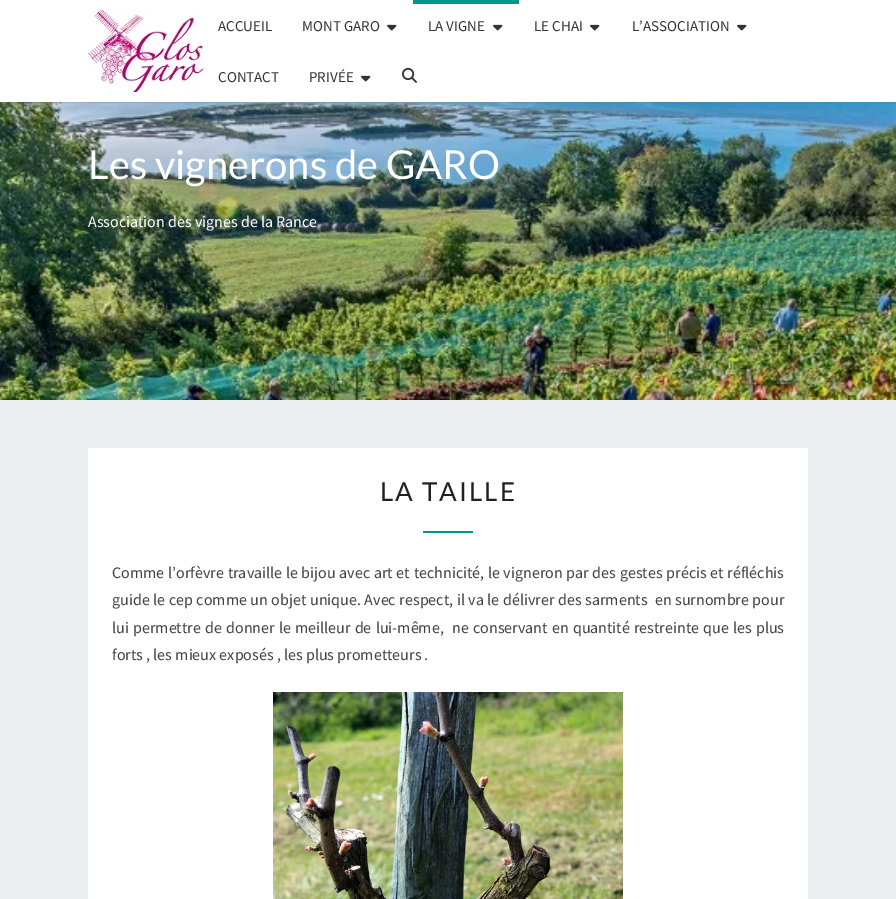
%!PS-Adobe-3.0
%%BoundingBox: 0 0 896 899
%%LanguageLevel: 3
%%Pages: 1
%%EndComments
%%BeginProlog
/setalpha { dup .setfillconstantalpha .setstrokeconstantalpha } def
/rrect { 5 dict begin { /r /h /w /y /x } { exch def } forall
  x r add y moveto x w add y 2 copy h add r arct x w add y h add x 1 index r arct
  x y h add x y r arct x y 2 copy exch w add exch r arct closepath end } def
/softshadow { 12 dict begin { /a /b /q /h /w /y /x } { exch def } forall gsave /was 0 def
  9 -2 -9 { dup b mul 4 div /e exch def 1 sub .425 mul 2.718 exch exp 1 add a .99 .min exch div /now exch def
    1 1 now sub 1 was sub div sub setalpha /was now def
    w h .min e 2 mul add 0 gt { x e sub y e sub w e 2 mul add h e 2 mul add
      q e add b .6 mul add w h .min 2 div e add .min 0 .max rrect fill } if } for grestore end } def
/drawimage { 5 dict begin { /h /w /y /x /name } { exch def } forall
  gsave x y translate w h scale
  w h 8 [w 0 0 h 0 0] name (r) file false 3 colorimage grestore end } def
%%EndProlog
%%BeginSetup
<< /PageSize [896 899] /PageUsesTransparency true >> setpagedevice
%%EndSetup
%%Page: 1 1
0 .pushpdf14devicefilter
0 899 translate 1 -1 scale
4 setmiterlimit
0.925 0.937 0.945 setrgbcolor
0 0 896 899 rectfill
(images/4.raw) 0 102 896 298 drawimage
0.392 setgray
0 1 896 102 0 0.5 0.2 softshadow
1 setgray
0 0 896 102 rectfill
(images/1.raw) 88 10 115 82 drawimage
(images/2.raw) 387 24 10 7 drawimage
0 0.588 0.533 setrgbcolor
413 0 106 4 rectfill
(images/2.raw) 493 24 10 7 drawimage
(images/2.raw) 590 24 10 7 drawimage
(images/2.raw) 737 24 10 7 drawimage
(images/2.raw) 361 75 10 7 drawimage
(images/3.raw) 402 67 15 16 drawimage
1 setgray
88 448 720 451 rectfill
0 0.588 0.533 setrgbcolor
423 531 50 2 rectfill
(images/5.raw) 273 692 350 207 drawimage
/SourceSansPro-Regular [15 0 0 -15 0 0] selectfont
0.2 setgray
218 31 moveto (ACCUEIL) show
302 31 moveto (MONT GARO) show
428 31 moveto (LA VIGNE) show
534 31 moveto (LE CHAI) show
632 31 moveto (L’ASSOCIATION) show
218 82 moveto (CONTACT) show
309 82 moveto (PRIVÉE) show
/Lato-Regular [40 0 0 -40 0 0] selectfont
1 setgray
88 179 moveto (Les vignerons de GARO) show
/SourceSansPro-Regular [16 0 0 -16 0 0] selectfont
88 227 moveto (Association des vignes de la Rance) show
/Lato-Regular [26 0 0 -26 0 0] selectfont
0.129 setgray
380 501 moveto 2 0 (LA TAILLE) ashow
/SourceSansPro-Regular [16 0 0 -16 0 0] selectfont
0.259 setgray
112 578 moveto 0.5 0 32 (Comme l’orfèvre travaille le bijou avec art et technicité, le vigneron par des gestes précis et réfléchis) widthshow
112 605 moveto 0.4 0 32 (guide le cep comme un objet unique. Avec respect, il va le délivrer des sarments  en surnombre pour) widthshow
112 633 moveto 1 0 32 (lui permettre de donner le meilleur de lui-même,  ne conservant en quantité restreinte que les plus) widthshow
112 660 moveto (forts , les mieux exposés , les plus prometteurs .) show
.poppdf14devicefilter showpage
%%EOF
